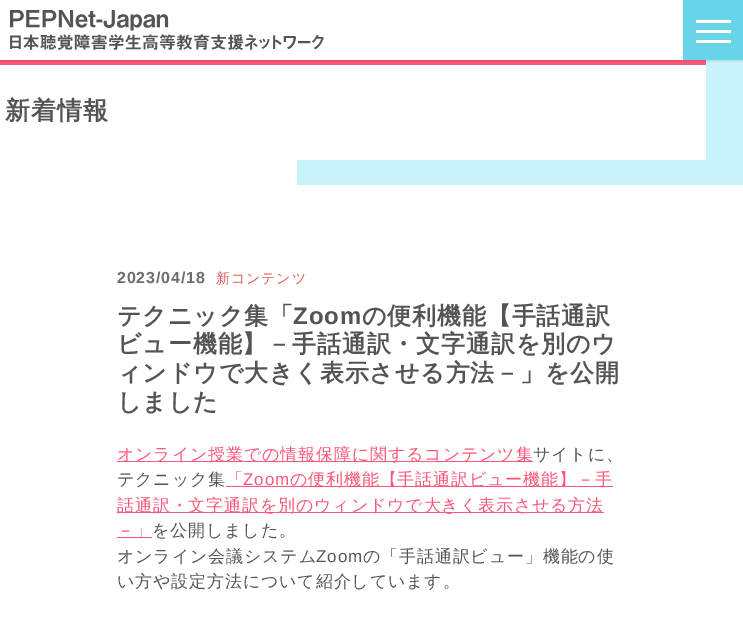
%!PS-Adobe-3.0
%%BoundingBox: 0 0 743 633
%%LanguageLevel: 3
%%Pages: 1
%%EndComments
%%BeginProlog
/setalpha { dup .setfillconstantalpha .setstrokeconstantalpha } def
/rrect { 5 dict begin { /r /h /w /y /x } { exch def } forall
  x r add y moveto x w add y 2 copy h add r arct x w add y h add x 1 index r arct
  x y h add x y r arct x y 2 copy exch w add exch r arct closepath end } def
/softshadow { 12 dict begin { /a /b /q /h /w /y /x } { exch def } forall gsave /was 0 def
  9 -2 -9 { dup b mul 4 div /e exch def 1 sub .425 mul 2.718 exch exp 1 add a .99 .min exch div /now exch def
    1 1 now sub 1 was sub div sub setalpha /was now def
    w h .min e 2 mul add 0 gt { x e sub y e sub w e 2 mul add h e 2 mul add
      q e add b .6 mul add w h .min 2 div e add .min 0 .max rrect fill } if } for grestore end } def
/drawimage { 5 dict begin { /h /w /y /x /name } { exch def } forall
  gsave x y translate w h scale
  w h 8 [w 0 0 h 0 0] name (r) file false 3 colorimage grestore end } def
%%EndProlog
%%BeginSetup
<< /PageSize [743 633] /PageUsesTransparency true >> setpagedevice
%%EndSetup
%%Page: 1 1
0 .pushpdf14devicefilter
0 633 translate 1 -1 scale
4 setmiterlimit
1 setgray
0 0 743 633 rectfill
0.788 0.953 0.984 setrgbcolor
297 60 446 125 rectfill
1 setgray
297 65 409 95 rectfill
0.988 0.337 0.471 setrgbcolor
0 60 706 5 rectfill
gsave
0 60 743 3 rectclip
0 setgray
0 0 743 60 0 2 0.2 softshadow
grestore
(images/1.raw) 10 10 314 40 drawimage
0.404 0.831 0.906 setrgbcolor
683 0 60 60 rectfill
1 setgray
696 20 35 3 rectfill
696 30 35 3 rectfill
696 40 35 3 rectfill
0.988 0.337 0.471 setrgbcolor
117 461 416 1 rectfill
226 486 387 1 rectfill
117 512 487 1 rectfill
117 537 35 1 rectfill
/WenQuanYiZenHei-Bold [25 0 0 -25 0 0] selectfont
0.329 setgray
5 119 moveto 0.85 0 (新着情報) ashow
/LiberationSans-Bold [16 0 0 -16 0 0] selectfont
0.427 setgray
117 283 moveto 0.85 0 (2023/04/18) ashow
/WenQuanYiZenHei-Medium [14 0 0 -14 0 0] selectfont
0.859 0.341 0.322 setrgbcolor
216 283 moveto 0.85 0 (新コンテンツ) ashow
/WenQuanYiZenHei-Bold [24 0 0 -24 0 0] selectfont
0.329 setgray
117 324 moveto 0.85 0 (テクニック集「) ashow
/LiberationSans-Bold [24 0 0 -24 0 0] selectfont
293 324 moveto 0.85 0 (Zoom) ashow
/WenQuanYiZenHei-Bold [24 0 0 -24 0 0] selectfont
362 324 moveto 0.85 0 (の便利機能【手話通訳) ashow
117 352 moveto 0.85 0 (ビュー機能】－手話通訳・文字通訳を別のウ) ashow
117 381 moveto 0.85 0 (ィンドウで大きく表示させる方法－」を公開) ashow
117 410 moveto 0.85 0 (しました) ashow
/WenQuanYiZenHei-Medium [17 0 0 -17 0 0] selectfont
0.988 0.337 0.471 setrgbcolor
117 460 moveto 0.85 0 (オンライン授業での情報保障に関するコンテンツ集) ashow
0.329 setgray
533 460 moveto 0.85 0 (サイトに、) ashow
117 485 moveto 0.85 0 (テクニック集) ashow
0.988 0.337 0.471 setrgbcolor
226 485 moveto 0.85 0 (「) ashow
/LiberationSans-Regular [17 0 0 -17 0 0] selectfont
243 485 moveto 0.85 0 (Zoom) ashow
/WenQuanYiZenHei-Medium [17 0 0 -17 0 0] selectfont
290 485 moveto 0.85 0 (の便利機能【手話通訳ビュー機能】－手) ashow
117 511 moveto 0.85 0 (話通訳・文字通訳を別のウィンドウで大きく表示させる方法) ashow
117 536 moveto 0.85 0 (－」) ashow
0.329 setgray
152 536 moveto 0.85 0 (を公開しました。) ashow
117 562 moveto 0.85 0 (オンライン会議システム) ashow
/LiberationSans-Regular [17 0 0 -17 0 0] selectfont
316 562 moveto 0.85 0 (Zoom) ashow
/WenQuanYiZenHei-Medium [17 0 0 -17 0 0] selectfont
363 562 moveto 0.85 0 (の「手話通訳ビュー」機能の使) ashow
117 587 moveto 0.85 0 (い方や設定方法について紹介しています。) ashow
.poppdf14devicefilter showpage
%%EOF
